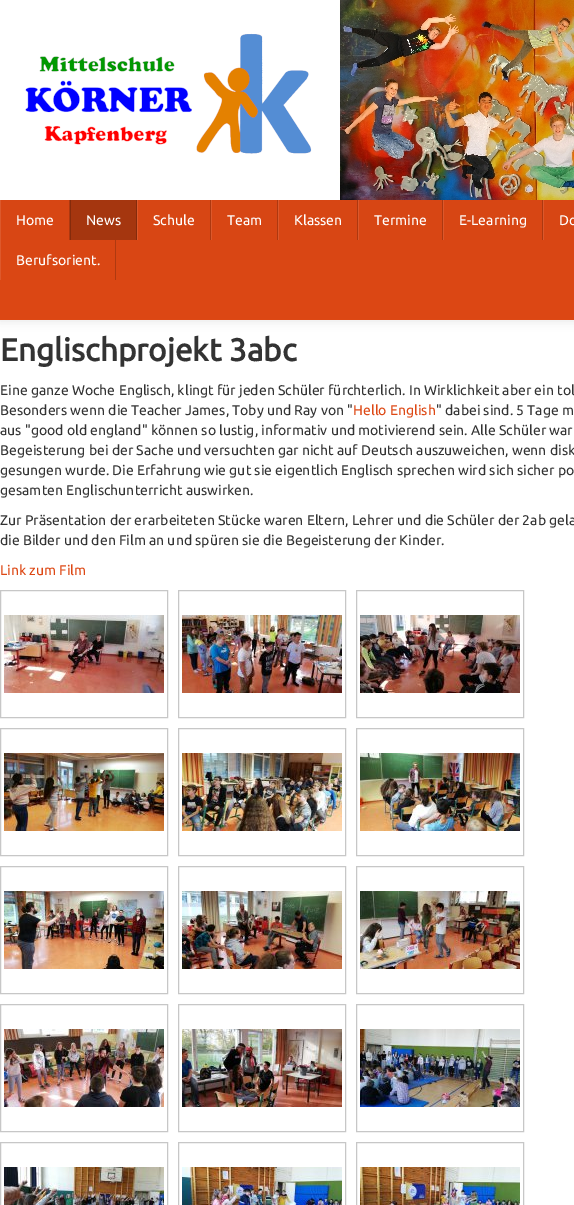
%!PS-Adobe-3.0
%%BoundingBox: 0 0 574 1205
%%LanguageLevel: 3
%%Pages: 1
%%EndComments
%%BeginProlog
/setalpha { dup .setfillconstantalpha .setstrokeconstantalpha } def
/rrect { 5 dict begin { /r /h /w /y /x } { exch def } forall
  x r add y moveto x w add y 2 copy h add r arct x w add y h add x 1 index r arct
  x y h add x y r arct x y 2 copy exch w add exch r arct closepath end } def
/softshadow { 12 dict begin { /a /b /q /h /w /y /x } { exch def } forall gsave /was 0 def
  9 -2 -9 { dup b mul 4 div /e exch def 1 sub .425 mul 2.718 exch exp 1 add a .99 .min exch div /now exch def
    1 1 now sub 1 was sub div sub setalpha /was now def
    w h .min e 2 mul add 0 gt { x e sub y e sub w e 2 mul add h e 2 mul add
      q e add b .6 mul add w h .min 2 div e add .min 0 .max rrect fill } if } for grestore end } def
/drawimage { 5 dict begin { /h /w /y /x /name } { exch def } forall
  gsave x y translate w h scale
  w h 8 [w 0 0 h 0 0] name (r) file false 3 colorimage grestore end } def
%%EndProlog
%%BeginSetup
<< /PageSize [574 1205] /PageUsesTransparency true >> setpagedevice
%%EndSetup
%%Page: 1 1
0 .pushpdf14devicefilter
0 1205 translate 1 -1 scale
4 setmiterlimit
1 setgray
0 0 574 1205 rectfill
0 setgray
0 1 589 320 0 5 0.1 softshadow
gsave newpath 0 200 moveto 574 200 lineto 574 320 lineto 0 320 lineto closepath clip newpath
<< /ShadingType 2 /ColorSpace /DeviceRGB /Coords [470 0 470 320] /Extend [true true] /Function << /FunctionType 2 /Domain [0 1] /C0 [0.808 0.259 0.075] /C1 [0.867 0.282 0.078] /N 1 >> >> shfill grestore
(images/1.raw) 0 0 574 200 drawimage
(images/2.raw) 25 22 315 146 drawimage
0.678 0.22 0.063 setrgbcolor
69 200 1 40 rectfill
0.863 0.349 0.173 setrgbcolor
0 200 1 40 rectfill
0.647 0.212 0.059 setrgbcolor
71 200 65 40 rectfill
0.518 0.169 0.047 setrgbcolor
136 200 1 40 rectfill
70 200 1 40 rectfill
0.678 0.22 0.063 setrgbcolor
210 200 1 40 rectfill
0.863 0.349 0.173 setrgbcolor
137 200 1 40 rectfill
0.678 0.22 0.063 setrgbcolor
277 200 1 40 rectfill
0.863 0.349 0.173 setrgbcolor
211 200 1 40 rectfill
0.678 0.22 0.063 setrgbcolor
357 200 1 40 rectfill
0.863 0.349 0.173 setrgbcolor
278 200 1 40 rectfill
0.678 0.22 0.063 setrgbcolor
442 200 1 40 rectfill
0.863 0.349 0.173 setrgbcolor
358 200 1 40 rectfill
0.678 0.22 0.063 setrgbcolor
542 200 1 40 rectfill
0.863 0.349 0.173 setrgbcolor
443 200 1 40 rectfill
543 200 1 40 rectfill
0.686 0.224 0.063 setrgbcolor
115 240 1 40 rectfill
0.871 0.349 0.173 setrgbcolor
0 240 1 40 rectfill
0.78 setgray
0.5 590.5 167 127 rectstroke
(images/3.raw) 4 615 160 78 drawimage
178.5 590.5 167 127 rectstroke
(images/4.raw) 182 615 160 78 drawimage
356.5 590.5 167 127 rectstroke
(images/5.raw) 360 615 160 78 drawimage
0.5 728.5 167 127 rectstroke
(images/6.raw) 4 753 160 78 drawimage
178.5 728.5 167 127 rectstroke
(images/7.raw) 182 753 160 78 drawimage
356.5 728.5 167 127 rectstroke
(images/8.raw) 360 753 160 78 drawimage
0.5 866.5 167 127 rectstroke
(images/9.raw) 4 891 160 78 drawimage
178.5 866.5 167 127 rectstroke
(images/10.raw) 182 891 160 78 drawimage
356.5 866.5 167 127 rectstroke
(images/11.raw) 360 891 160 78 drawimage
0.5 1004.5 167 127 rectstroke
(images/12.raw) 4 1029 160 78 drawimage
178.5 1004.5 167 127 rectstroke
(images/13.raw) 182 1029 160 78 drawimage
356.5 1004.5 167 127 rectstroke
(images/14.raw) 360 1029 160 78 drawimage
0.5 1142.5 167 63 rectstroke
(images/15.raw) 4 1167 160 38 drawimage
178.5 1142.5 167 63 rectstroke
(images/16.raw) 182 1167 160 38 drawimage
356.5 1142.5 167 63 rectstroke
(images/17.raw) 360 1167 160 38 drawimage
/Ubuntu-Regular [14 0 0 -14 0 0] selectfont
1 setgray
16 225 moveto (Home) show
86 225 moveto (News) show
153 225 moveto (Schule) show
227 225 moveto (Team) show
294 225 moveto (Klassen) show
374 225 moveto (Termine) show
459 225 moveto (E-Learning) show
559 225 moveto (Do) show
16 265 moveto (Berufsorient.) show
/Ubuntu-Bold [31.5 0 0 -31.5 0 0] selectfont
0.2 setgray
0 361 moveto (Englischprojekt 3abc) show
/Ubuntu-Regular [14 0 0 -14 0 0] selectfont
0 395 moveto (Eine ganze Woche Englisch, klingt für jeden Schüler fürchterlich. In Wirklichkeit aber ein tol) show
0 415 moveto (Besonders wenn die Teacher James, Toby und Ray von ") show
0.867 0.282 0.078 setrgbcolor
353 415 moveto (Hello English) show
0.2 setgray
436 415 moveto (" dabei sind. 5 Tage m) show
0 435 moveto (aus "good old england" können so lustig, informativ und motivierend sein. Alle Schüler war) show
0 455 moveto (Begeisterung bei der Sache und versuchten gar nicht auf Deutsch auszuweichen, wenn disk) show
0 475 moveto (gesungen wurde. Die Erfahrung wie gut sie eigentlich Englisch sprechen wird sich sicher po) show
0 495 moveto (gesamten Englischunterricht auswirken.) show
0 525 moveto (Zur Präsentation der erarbeiteten Stücke waren Eltern, Lehrer und die Schüler der 2ab gela) show
0 545 moveto (die Bilder und den Film an und spüren sie die Begeisterung der Kinder.) show
0.867 0.282 0.078 setrgbcolor
0 575 moveto (Link zum Film) show
.poppdf14devicefilter showpage
%%EOF
